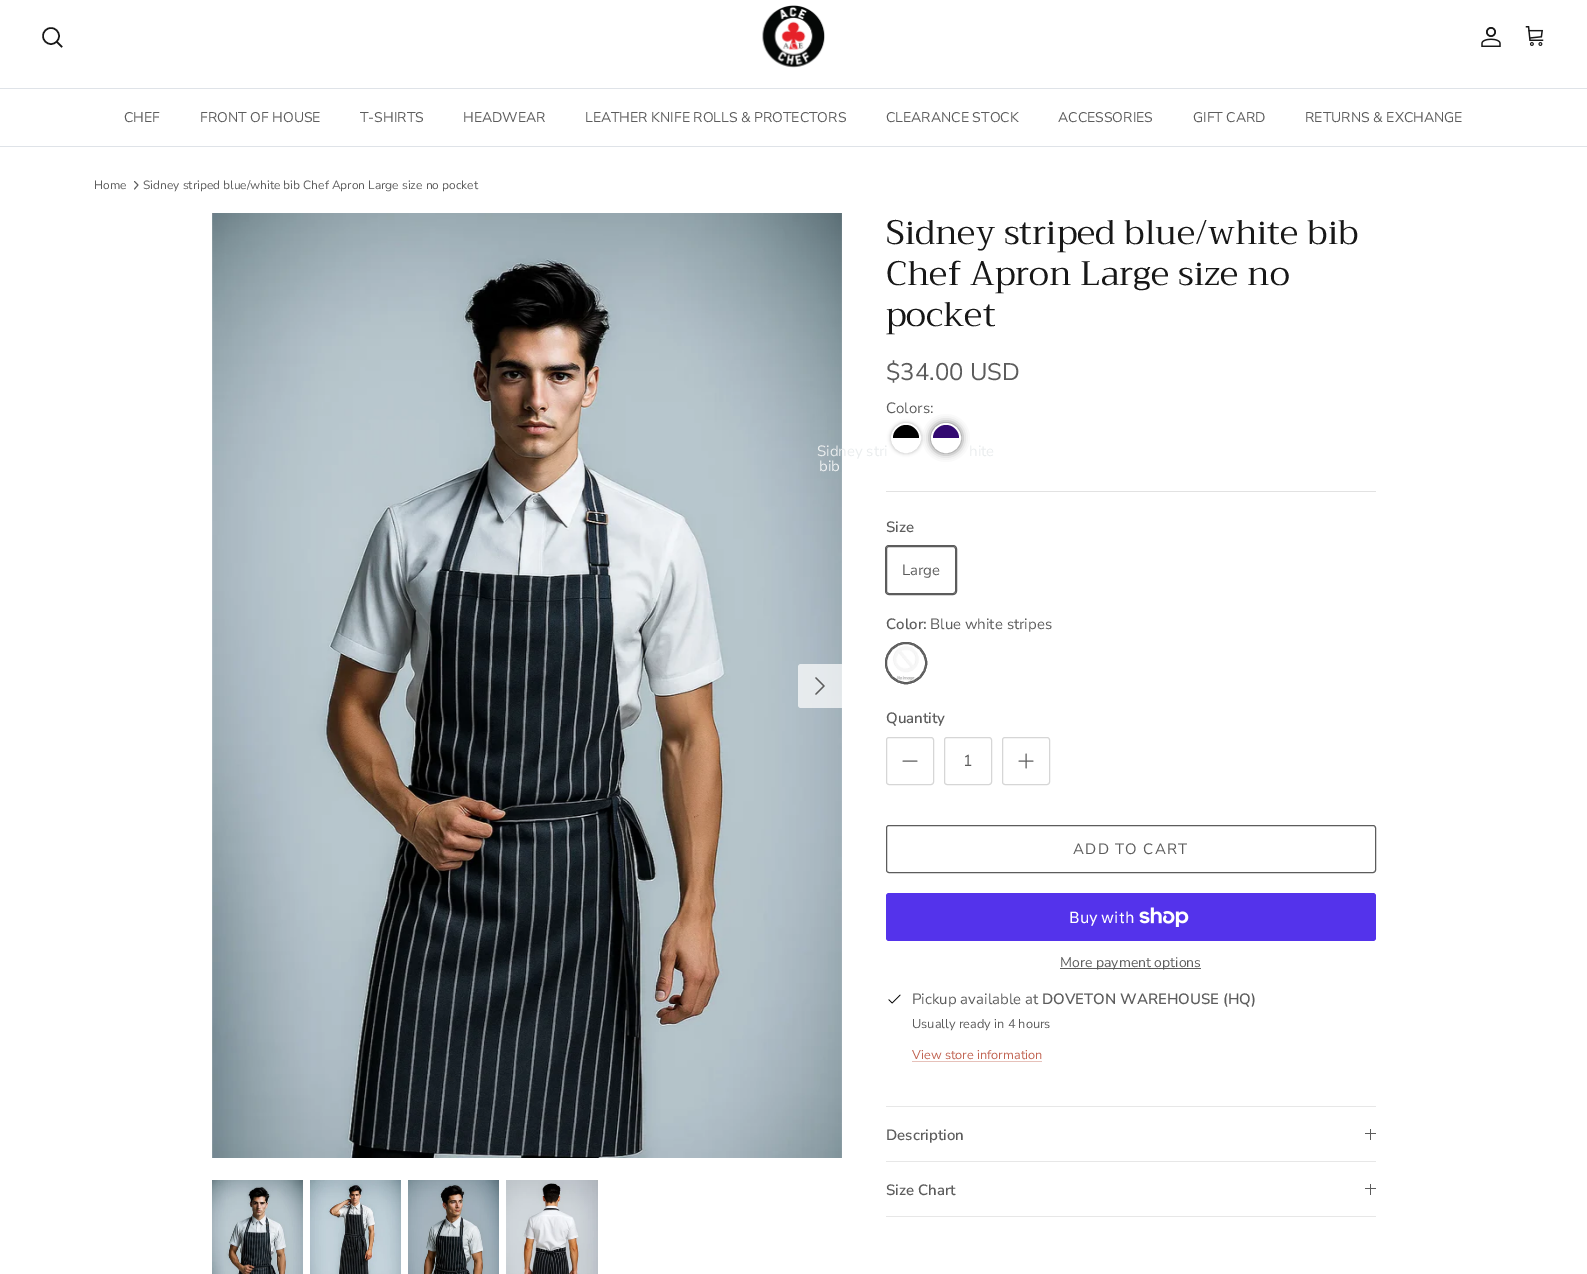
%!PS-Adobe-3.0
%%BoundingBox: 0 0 1587 1274
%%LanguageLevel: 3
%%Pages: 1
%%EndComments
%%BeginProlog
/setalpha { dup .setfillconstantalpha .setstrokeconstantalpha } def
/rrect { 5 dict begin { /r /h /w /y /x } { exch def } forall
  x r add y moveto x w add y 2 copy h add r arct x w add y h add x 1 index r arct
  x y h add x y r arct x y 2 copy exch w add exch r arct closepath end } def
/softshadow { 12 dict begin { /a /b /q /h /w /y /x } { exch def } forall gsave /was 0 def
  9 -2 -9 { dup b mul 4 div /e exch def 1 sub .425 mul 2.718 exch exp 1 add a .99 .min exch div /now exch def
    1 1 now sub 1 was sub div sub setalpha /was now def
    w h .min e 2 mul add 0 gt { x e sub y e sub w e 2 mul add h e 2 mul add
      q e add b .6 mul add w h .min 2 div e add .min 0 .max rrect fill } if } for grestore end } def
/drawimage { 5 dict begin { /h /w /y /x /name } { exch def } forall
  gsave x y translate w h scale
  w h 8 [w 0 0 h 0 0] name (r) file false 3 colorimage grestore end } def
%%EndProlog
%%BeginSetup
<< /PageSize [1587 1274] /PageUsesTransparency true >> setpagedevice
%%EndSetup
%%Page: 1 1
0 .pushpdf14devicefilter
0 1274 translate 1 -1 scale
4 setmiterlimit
1 setgray
0 0 1587 1274 rectfill
0.875 0.89 0.91 setrgbcolor
0 88 1587 1 rectfill
0.09 setgray
1.5 setlinewidth
newpath 51 36 8 0 360 arc closepath stroke
2 setlinecap
newpath 57 42 moveto 61.5 46.5 lineto stroke
(images/1.raw) 762 5 63 63 drawimage
(images/2.raw) 1481 27 20 20 drawimage
(images/3.raw) 1525 26 19 20 drawimage
0.875 0.89 0.91 setrgbcolor
0 146 1587 1 rectfill
0.361 setgray
0.9 setlinewidth
1 setlinecap
1 setlinejoin
newpath 134.5 189 moveto 138 185 lineto 134.5 181.5 lineto stroke
(images/4.raw) 212 213 630 945 drawimage
0.7 setalpha
1 setgray
newpath 801 664 moveto 842 664 lineto 842 708 lineto 801 708 lineto 799.5 708 798 706.5 798 705 curveto 798 667 lineto 798 665.5 799.5 664 801 664 curveto closepath fill
1 setalpha
0.361 setgray
1.3 setlinewidth
newpath 816 694 moveto 824 686 lineto 816 678 lineto stroke
(images/5.raw) 212 1180 91 94 drawimage
(images/6.raw) 310 1180 91 94 drawimage
(images/7.raw) 408 1180 91 94 drawimage
(images/8.raw) 506 1180 92 94 drawimage
gsave
newpath 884 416 moveto 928 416 lineto 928 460 lineto 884 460 lineto closepath 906 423 moveto 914.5 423 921 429.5 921 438 curveto 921 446.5 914.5 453 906 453 curveto 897.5 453 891 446.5 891 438 curveto 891 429.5 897.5 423 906 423 curveto closepath eoclip newpath
0 setgray
891 423 30 30 15 2 0.3 softshadow
grestore
1 setgray
2 setlinewidth
0 setlinecap
0 setlinejoin
newpath 906 438 14 0 360 arc closepath stroke
gsave
newpath 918 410 moveto 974 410 lineto 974 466 lineto 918 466 lineto closepath 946 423 moveto 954.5 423 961 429.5 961 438 curveto 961 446.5 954.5 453 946 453 curveto 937.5 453 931 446.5 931 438 curveto 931 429.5 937.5 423 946 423 curveto closepath eoclip newpath
0 setgray
931 423 30 30 15 4 0.6 softshadow
grestore
newpath 946 438 14 0 360 arc closepath stroke
0.196 0.035 0.439 setrgbcolor
newpath 946 425 moveto 953 425 959 431 959 438 curveto 933 438 lineto 933 431 939 425 946 425 curveto closepath fill
0 setgray
newpath 906 425 moveto 913 425 919 431 919 438 curveto 893 438 lineto 893 431 899 425 906 425 curveto closepath fill
0.886 setgray
886 491 490 1 rectfill
0.361 setgray
1 setlinewidth
885.5 545.5 71 49 3.5 rrect stroke
1 setgray
886.5 546.5 69 47 2.5 rrect gsave fill grestore
0.361 setgray
stroke
newpath 906 663 20.5 0 360 arc closepath stroke
(images/9.raw) 886 643 40 40 drawimage
newpath 906 663 20.5 0 360 arc closepath stroke
newpath 906 663 19.5 0 360 arc closepath stroke
0.839 setgray
886.5 737.5 47 47 2.5 rrect stroke
0.361 setgray
1 setlinecap
1 setlinejoin
newpath 903 761 moveto 917 761 lineto stroke
0.839 setgray
0 setlinecap
0 setlinejoin
944.5 737.5 47 47 2.5 rrect stroke
1002.5 737.5 47 47 2.5 rrect stroke
0.361 setgray
1 setlinecap
1 setlinejoin
newpath 1026 754 moveto 1026 768 lineto 1019 761 moveto 1033 761 lineto stroke
0 setlinecap
0 setlinejoin
886.5 825.5 489 47 2.5 rrect stroke
0.329 0.2 0.922 setrgbcolor
886 893 490 48 3 rrect fill
(images/10.raw) 1139 907 50 20 drawimage
0.361 setgray
1060 968 141 1 rectfill
(images/11.raw) 888 994 13 10 drawimage
0.902 0.757 0.729 setrgbcolor
912 1061 130 1 rectfill
0.906 setgray
886 1106 490 1 rectfill
886 1161 490 1 rectfill
0.361 setgray
1370 1129 1 11 rectfill
1365 1133 11 1 rectfill
0.906 setgray
886 1216 490 1 rectfill
0.361 setgray
1370 1184 1 11 rectfill
1365 1188 11 1 rectfill
/NunitoSans-Regular [14 0 0 -14 0 0] selectfont
124 122 moveto (CHEF) show
200 122 moveto (FRONT OF HOUSE) show
360 122 moveto (T-SHIRTS) show
463 122 moveto (HEADWEAR) show
585 122 moveto (LEATHER KNIFE ROLLS & PROTECTORS) show
886 122 moveto (CLEARANCE STOCK) show
1058 122 moveto (ACCESSORIES) show
1193 122 moveto (GIFT CARD) show
1305 122 moveto (RETURNS & EXCHANGE) show
/NunitoSans-Regular [12 0 0 -12 0 0] selectfont
94 189 moveto (Home) show
143 189 moveto (Sidney striped blue/white bib Chef Apron Large size no pocket) show
/Trirong-Regular [34 0 0 -34 0 0] selectfont
0.09 setgray
886 244 moveto (Sidney striped blue/white bib) show
886 285 moveto (Chef Apron Large size no) show
886 326 moveto (pocket) show
/NunitoSans-Regular [24 0 0 -24 0 0] selectfont
0.361 setgray
886 380 moveto ($34.00 USD) show
/NunitoSans-Regular [15 0 0 -15 0 0] selectfont
886 413 moveto (Colors:) show
0.918 0.929 0.933 setrgbcolor
817 456 moveto (Sidney stri) show
969 456 moveto (hite) show
0.945 0.953 0.957 setrgbcolor
819 471 moveto (bib) show
/NunitoSans-SemiBold [15 0 0 -15 0 0] selectfont
0.361 setgray
886 532 moveto (Size) show
/NunitoSans-Regular [15 0 0 -15 0 0] selectfont
902 575 moveto (Large) show
/NunitoSans-SemiBold [15 0 0 -15 0 0] selectfont
886 629 moveto (Color:) show
/NunitoSans-Regular [15 0 0 -15 0 0] selectfont
930 629 moveto (Blue white stripes) show
/NunitoSans-SemiBold [15 0 0 -15 0 0] selectfont
886 723 moveto (Quantity) show
/NunitoSans-Regular [16 0 0 -16 0 0] selectfont
963 766 moveto (1) show
/NunitoSans-Regular [15 0 0 -15 0 0] selectfont
1073 854 moveto 1.25 0 (ADD TO CART) ashow
/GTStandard-Regular [16 0 0 -16 0 0] selectfont
1 setgray
1069 923 moveto (Buy with) show
/NunitoSans-Regular [14 0 0 -14 0 0] selectfont
0.361 setgray
1060 967 moveto (More payment options) show
/NunitoSans-Regular [15 0 0 -15 0 0] selectfont
912 1004 moveto (Pickup available at) show
/NunitoSans-SemiBold [15 0 0 -15 0 0] selectfont
1042 1004 moveto (DOVETON WAREHOUSE \(HQ\)) show
/NunitoSans-Regular [12.75 0 0 -12.75 0 0] selectfont
912 1028 moveto (Usually ready in 4 hours) show
0.757 0.392 0.322 setrgbcolor
912 1059 moveto (View store information) show
/NunitoSans-SemiBold [15 0 0 -15 0 0] selectfont
0.361 setgray
886 1140 moveto (Description) show
886 1195 moveto (Size Chart) show
.poppdf14devicefilter showpage
%%EOF
